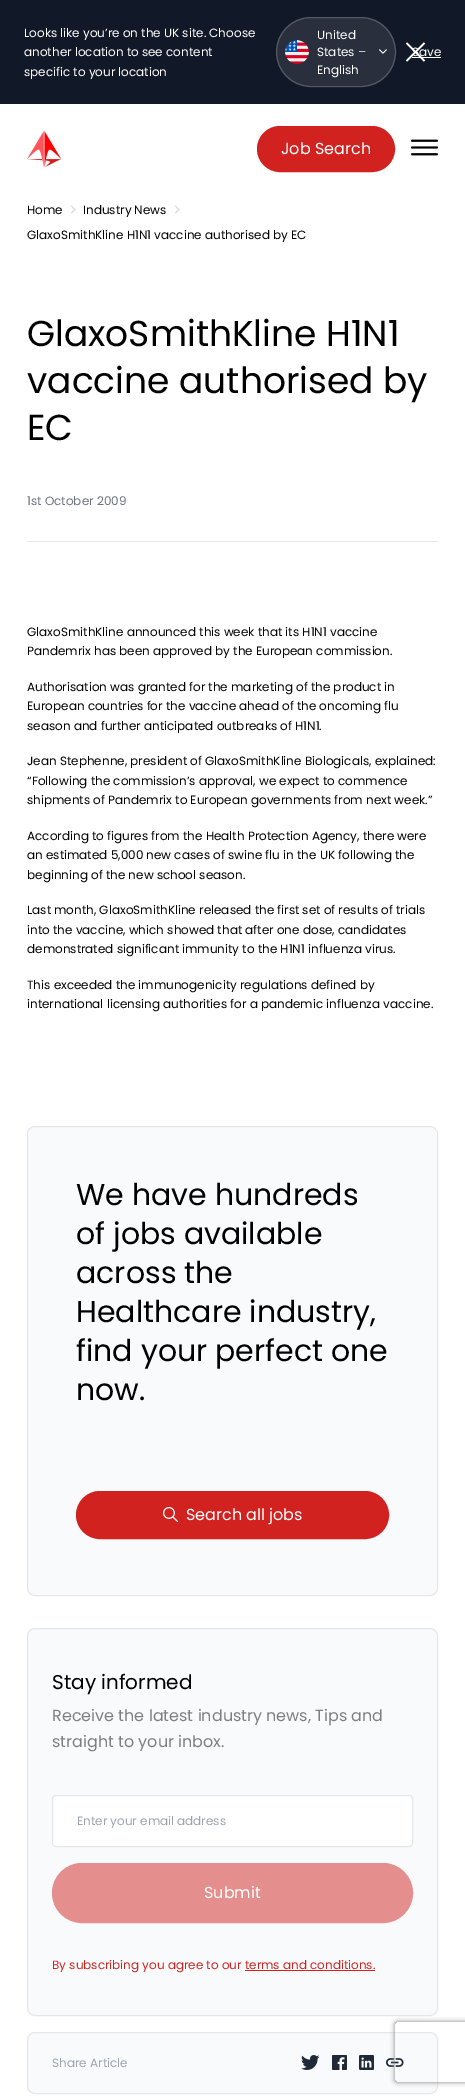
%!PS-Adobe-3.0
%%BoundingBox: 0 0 465 2096
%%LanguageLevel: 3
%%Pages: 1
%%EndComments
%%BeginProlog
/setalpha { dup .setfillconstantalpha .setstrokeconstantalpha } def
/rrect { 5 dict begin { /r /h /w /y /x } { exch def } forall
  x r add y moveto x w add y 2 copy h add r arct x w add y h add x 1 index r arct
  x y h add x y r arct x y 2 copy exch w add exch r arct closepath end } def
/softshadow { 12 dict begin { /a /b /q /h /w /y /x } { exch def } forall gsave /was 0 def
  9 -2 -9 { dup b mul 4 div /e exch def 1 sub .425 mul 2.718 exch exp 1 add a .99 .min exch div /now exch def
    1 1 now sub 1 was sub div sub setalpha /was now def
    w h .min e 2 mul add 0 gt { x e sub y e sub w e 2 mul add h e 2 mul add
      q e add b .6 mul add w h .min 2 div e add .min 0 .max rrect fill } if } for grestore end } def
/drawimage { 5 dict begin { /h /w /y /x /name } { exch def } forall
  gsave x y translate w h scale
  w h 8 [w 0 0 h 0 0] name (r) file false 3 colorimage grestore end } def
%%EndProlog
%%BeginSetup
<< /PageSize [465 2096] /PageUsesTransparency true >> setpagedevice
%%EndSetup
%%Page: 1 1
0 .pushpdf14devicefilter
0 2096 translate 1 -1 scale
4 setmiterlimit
1 setgray
0 0 465 2096 rectfill
0.067 0.094 0.153 setrgbcolor
0 0 465 104 rectfill
0.161 0.184 0.239 setrgbcolor
276 17 120 70 35 rrect fill
0.2 setalpha
1 setgray
276.5 17.5 119 69 34.5 rrect stroke
1 setalpha
(images/1.raw) 285 40 24 24 drawimage
(images/2.raw) 379 49 8 5 drawimage
412 57 29 1 rectfill
1.5 setlinewidth
newpath 406.5 43 moveto 424.5 61 lineto 424.5 43 moveto 406.5 61 lineto stroke
(images/3.raw) 27 131 34 36 drawimage
0.82 0.133 0.125 setrgbcolor
258 127 136 44 22 rrect gsave fill grestore
2 setlinewidth
stroke
(images/4.raw) 411 139 27 17 drawimage
0.898 0.906 0.922 setrgbcolor
27 541 411 1 rectfill
(images/5.raw) 71 205 5 9 drawimage
(images/5.raw) 175 205 5 9 drawimage
0.976 0.98 0.984 setrgbcolor
27.5 1126.5 410 469 7.5 rrect gsave fill grestore
0.898 0.906 0.922 setrgbcolor
1 setlinewidth
stroke
0.82 0.133 0.125 setrgbcolor
77 1492 311 46 23 rrect gsave fill grestore
2 setlinewidth
stroke
(images/6.raw) 163 1507 15 15 drawimage
0.976 0.98 0.984 setrgbcolor
27.5 1628.5 410 387 7.5 rrect gsave fill grestore
0.898 0.906 0.922 setrgbcolor
1 setlinewidth
stroke
1 setgray
52.5 1795.5 360 51 3.5 rrect gsave fill grestore
0.898 0.906 0.922 setrgbcolor
stroke
0.898 0.557 0.557 setrgbcolor
52.5 1863.5 360 59 29.5 rrect gsave fill grestore
stroke
0.82 0.133 0.125 setrgbcolor
245 1970 130 1 rectfill
0.976 0.98 0.984 setrgbcolor
27.5 2032.5 410 61 7.5 rrect gsave fill grestore
0.898 0.906 0.922 setrgbcolor
stroke
(images/7.raw) 301 2055 19 15 drawimage
(images/8.raw) 332 2055 15 15 drawimage
(images/9.raw) 359 2055 15 15 drawimage
(images/10.raw) 386 2058 18 9 drawimage
gsave
newpath 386 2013 moveto 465 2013 lineto 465 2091 lineto 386 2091 lineto closepath 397 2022 moveto 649 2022 lineto 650 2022 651 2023 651 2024 curveto 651 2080 lineto 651 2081 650 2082 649 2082 curveto 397 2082 lineto 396 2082 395 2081 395 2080 curveto 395 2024 lineto 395 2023 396 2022 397 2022 curveto closepath eoclip newpath
0.502 setgray
395 2022 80 60 2 2.5 1 softshadow
grestore
/Poppins-Regular [12 0 0 -12 0 0] selectfont
1 setgray
24 37 moveto (Looks like you’re on the UK site. Choose) show
24 56 moveto (another location to see content) show
24 76 moveto (specific to your location) show
317 39 moveto (United) show
317 56 moveto (States –) show
317 74 moveto (English) show
412 56 moveto (Save) show
/Poppins-Regular [16 0 0 -16 0 0] selectfont
281 154 moveto (Job Search) show
/Poppins-Regular [12 0 0 -12 0 0] selectfont
0 setgray
27 214 moveto (Home) show
83 214 moveto (Industry News) show
27 239 moveto (GlaxoSmithKline H1N1 vaccine authorised by EC) show
/Poppins-Regular [36 0 0 -36 0 0] selectfont
27 346 moveto (GlaxoSmithKline H1N1) show
27 393 moveto (vaccine authorised by) show
27 440 moveto (EC) show
/Poppins-Regular [12 0 0 -12 0 0] selectfont
0.427 0.447 0.502 setrgbcolor
27 505 moveto (1st October 2009) show
0 setgray
27 636 moveto (GlaxoSmithKline announced this week that its H1N1 vaccine) show
27 655 moveto (Pandemrix has been approved by the European commission.) show
27 691 moveto (Authorisation was granted for the marketing of the product in) show
27 710 moveto (European countries for the vaccine ahead of the oncoming flu) show
27 730 moveto (season and further anticipated outbreaks of H1N1.) show
27 765 moveto (Jean Stephenne, president of GlaxoSmithKline Biologicals, explained:) show
27 785 moveto (“Following the commission’s approval, we expect to commence) show
27 804 moveto (shipments of Pandemrix to European governments from next week.”) show
27 840 moveto (According to figures from the Health Protection Agency, there were) show
27 859 moveto (an estimated 5,000 new cases of swine flu in the UK following the) show
27 879 moveto (beginning of the new school season.) show
27 914 moveto (Last month, GlaxoSmithKline released the first set of results of trials) show
27 934 moveto (into the vaccine, which showed that after one dose, candidates) show
27 953 moveto (demonstrated significant immunity to the H1N1 influenza virus.) show
27 989 moveto (This exceeded the immunogenicity regulations defined by) show
27 1008 moveto (international licensing authorities for a pandemic influenza vaccine.) show
/Poppins-Regular [30 0 0 -30 0 0] selectfont
76 1205 moveto (We have hundreds) show
76 1244 moveto (of jobs available) show
76 1283 moveto (across the) show
76 1322 moveto (Healthcare industry,) show
76 1361 moveto (find your perfect one) show
76 1400 moveto (now.) show
/Poppins-Regular [16 0 0 -16 0 0] selectfont
1 setgray
186 1520 moveto (Search all jobs) show
/Poppins-Regular [20 0 0 -20 0 0] selectfont
0 setgray
52 1689 moveto (Stay informed) show
/Poppins-Regular [16 0 0 -16 0 0] selectfont
0.498 setgray
52 1721 moveto (Receive the latest industry news, Tips and) show
52 1747 moveto (straight to your inbox.) show
/Poppins-Regular [12 0 0 -12 0 0] selectfont
0.612 0.639 0.686 setrgbcolor
77 1825 moveto (Enter your email address) show
/Poppins-Regular [16 0 0 -16 0 0] selectfont
1 setgray
204 1898 moveto (Submit) show
/Poppins-Regular [12 0 0 -12 0 0] selectfont
0.82 0.133 0.125 setrgbcolor
52 1969 moveto (By subscribing you agree to our terms and conditions.) show
0.612 0.639 0.686 setrgbcolor
52 2067 moveto (Share Article) show
.poppdf14devicefilter showpage
%%EOF
